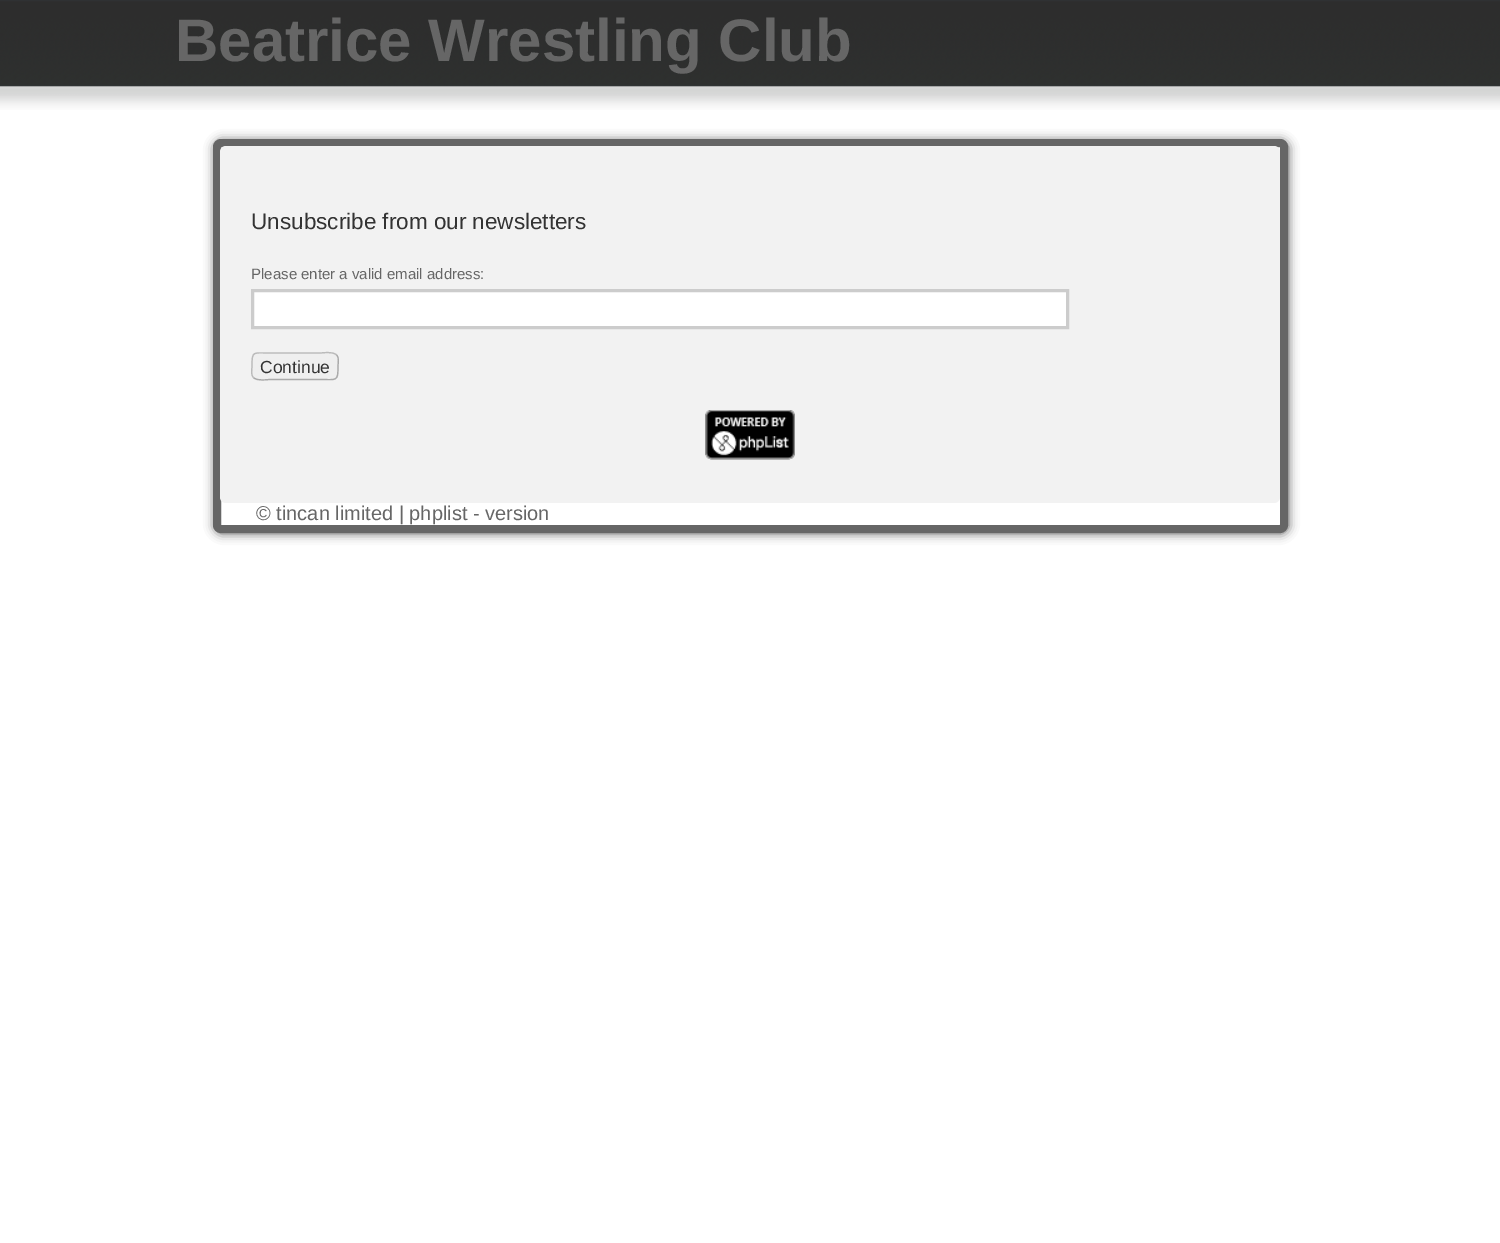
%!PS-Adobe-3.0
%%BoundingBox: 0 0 1500 1243
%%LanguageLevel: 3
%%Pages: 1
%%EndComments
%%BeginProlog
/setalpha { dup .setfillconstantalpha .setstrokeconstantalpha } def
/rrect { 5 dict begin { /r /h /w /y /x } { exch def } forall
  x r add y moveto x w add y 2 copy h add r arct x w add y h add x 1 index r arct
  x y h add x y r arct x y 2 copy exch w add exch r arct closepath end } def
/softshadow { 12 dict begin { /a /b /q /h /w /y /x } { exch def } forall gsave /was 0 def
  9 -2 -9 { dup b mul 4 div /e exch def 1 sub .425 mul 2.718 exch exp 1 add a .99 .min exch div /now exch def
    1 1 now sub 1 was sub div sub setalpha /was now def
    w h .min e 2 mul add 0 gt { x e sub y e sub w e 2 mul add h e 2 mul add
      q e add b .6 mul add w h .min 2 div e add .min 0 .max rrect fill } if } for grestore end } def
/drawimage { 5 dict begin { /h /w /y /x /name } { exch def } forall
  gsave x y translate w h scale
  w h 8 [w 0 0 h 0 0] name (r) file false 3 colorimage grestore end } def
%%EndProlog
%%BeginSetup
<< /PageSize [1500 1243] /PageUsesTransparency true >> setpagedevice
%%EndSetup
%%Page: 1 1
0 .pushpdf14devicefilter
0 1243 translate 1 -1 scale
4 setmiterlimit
1 setgray
0 0 1500 1243 rectfill
(images/1.raw) 0 0 1500 110 drawimage
gsave
newpath 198 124 moveto 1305 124 lineto 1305 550 lineto 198 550 lineto closepath 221 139 moveto 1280 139 lineto 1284.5 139 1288 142.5 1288 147 curveto 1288 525 lineto 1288 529.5 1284.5 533 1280 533 curveto 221 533 lineto 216.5 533 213 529.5 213 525 curveto 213 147 lineto 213 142.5 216.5 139 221 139 curveto closepath eoclip newpath
0 setgray
214 140 1075 394 8 5 0.6 softshadow
grestore
0.4 setgray
8 setlinewidth
217 143 1067 386 4 rrect stroke
0.949 setgray
220 146 1060 357 6 rrect fill
1 setgray
newpath 252.5 290.5 moveto 1067.5 290.5 lineto 1067.5 327.5 lineto 252.5 327.5 lineto closepath gsave fill grestore
0.8 setgray
3 setlinewidth
stroke
0.937 setgray
251 353 88 27 6 rrect fill
0.667 setgray
1.2 setlinewidth
newpath 336.5 355 moveto 339.5 357.5 338 363 338 366 curveto 338 382 337 379.5 320 379.5 curveto 270 379.5 lineto 268 379.5 257 381.5 253.5 377.5 curveto stroke
0.733 setgray
newpath 253.5 377.5 moveto 250.5 375 252 369.5 252 366 curveto 252 350.5 253 353 270 353 curveto 320 353 lineto 322 353 333 351 336.5 355 curveto stroke
(images/2.raw) 705 410 90 50 drawimage
/LiberationSans-Bold [60 0 0 -60 0 0] selectfont
0.4 setgray
175 61 moveto (Beatrice Wrestling Club) show
/LiberationSans-Regular [22.5 0 0 -22.5 0 0] selectfont
0.2 setgray
251 229 moveto (Unsubscribe from our newsletters) show
/LiberationSans-Regular [15 0 0 -15 0 0] selectfont
0.4 setgray
251 279 moveto (Please enter a valid email address:) show
/LiberationSans-Regular [17.5 0 0 -17.5 0 0] selectfont
0.2 setgray
260 373 moveto (Continue) show
/LiberationSans-Regular [20 0 0 -20 0 0] selectfont
0.4 setgray
256 520 moveto (© tincan limited | phplist - version) show
.poppdf14devicefilter showpage
%%EOF
